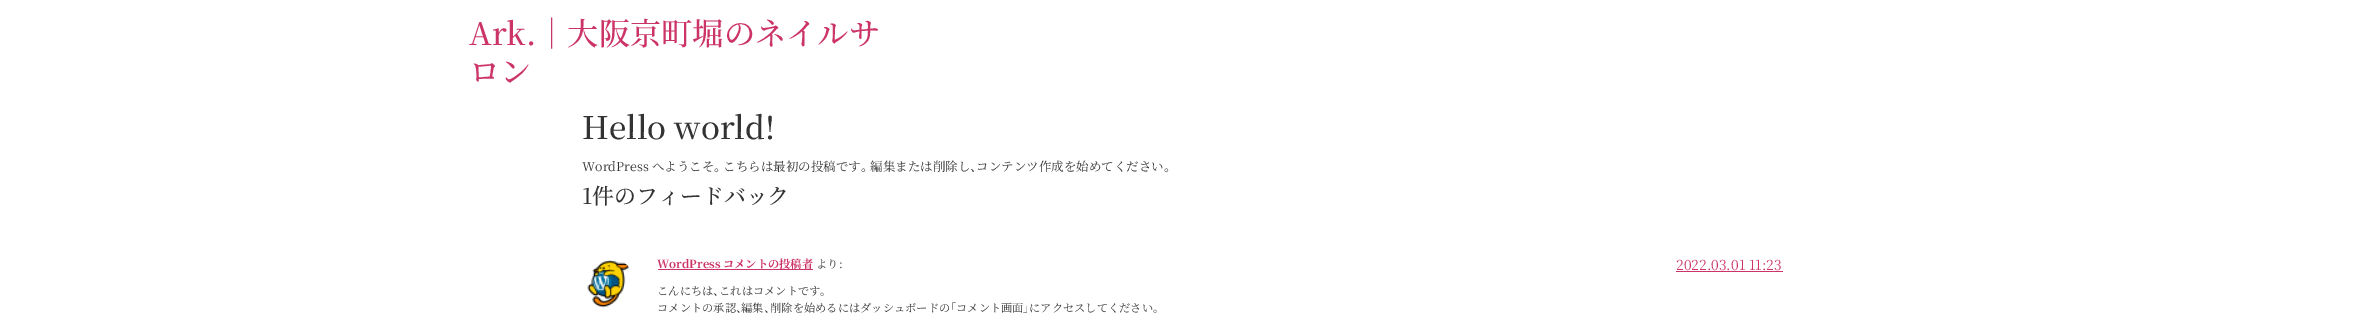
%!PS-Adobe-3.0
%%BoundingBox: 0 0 2363 323
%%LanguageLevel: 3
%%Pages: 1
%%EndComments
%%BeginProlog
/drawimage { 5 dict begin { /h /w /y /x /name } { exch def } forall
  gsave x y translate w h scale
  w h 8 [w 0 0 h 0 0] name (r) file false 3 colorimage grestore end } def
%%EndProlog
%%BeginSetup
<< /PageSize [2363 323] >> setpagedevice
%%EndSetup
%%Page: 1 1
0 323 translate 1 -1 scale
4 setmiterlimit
1 setgray
0 0 2363 323 rectfill
(images/1.raw) 587 260 42 48 drawimage
0.8 0.2 0.4 setrgbcolor
658 269 155 1 rectfill
1676 271 107 1 rectfill
/NotoSerifJP-Medium [31.25 0 0 -31.25 0 0] selectfont
469 45 moveto (Ark.｜大阪京町堀のネイルサ) show
469 83 moveto (ロン) show
0.2 setgray
582 139 moveto (Hello world!) show
/NotoSerifJP-Regular [12.5 0 0 -12.5 0 0] selectfont
582 171 moveto (WordPress へようこそ) show
/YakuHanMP-Medium [12.5 0 0 -12.5 0 0] selectfont
714 171 moveto (。) show
/NotoSerifJP-Regular [12.5 0 0 -12.5 0 0] selectfont
723 171 moveto (こちらは最初の投稿です) show
/YakuHanMP-Medium [12.5 0 0 -12.5 0 0] selectfont
861 171 moveto (。) show
/NotoSerifJP-Regular [12.5 0 0 -12.5 0 0] selectfont
870 171 moveto (編集または削除し) show
/YakuHanMP-Medium [12.5 0 0 -12.5 0 0] selectfont
970 171 moveto (、) show
/NotoSerifJP-Regular [12.5 0 0 -12.5 0 0] selectfont
976 171 moveto (コンテンツ作成を始めてください) show
/YakuHanMP-Medium [12.5 0 0 -12.5 0 0] selectfont
1164 171 moveto (。) show
/NotoSerifJP-Medium [21.9 0 0 -21.9 0 0] selectfont
582 204 moveto (1件のフィードバック) show
/NotoSerifJP-Bold [11.25 0 0 -11.25 0 0] selectfont
0.8 0.2 0.4 setrgbcolor
657 268 moveto (WordPress コメントの投稿者) show
/NotoSerifJP-Regular [11.25 0 0 -11.25 0 0] selectfont
0.2 setgray
816 268 moveto (より:) show
/NotoSerifJP-Regular [13.75 0 0 -13.75 0 0] selectfont
0.8 0.2 0.4 setrgbcolor
1676 270 moveto (2022.03.01 11:23) show
/NotoSerifJP-Regular [11.25 0 0 -11.25 0 0] selectfont
0.2 setgray
657 295 moveto (こんにちは) show
/YakuHanMP-Medium [11.25 0 0 -11.25 0 0] selectfont
713 295 moveto (、) show
/NotoSerifJP-Regular [11.25 0 0 -11.25 0 0] selectfont
719 295 moveto (これはコメントです) show
/YakuHanMP-Medium [11.25 0 0 -11.25 0 0] selectfont
820 295 moveto (。) show
/NotoSerifJP-Regular [11.25 0 0 -11.25 0 0] selectfont
657 312 moveto (コメントの承認) show
/YakuHanMP-Medium [11.25 0 0 -11.25 0 0] selectfont
736 312 moveto (、) show
/NotoSerifJP-Regular [11.25 0 0 -11.25 0 0] selectfont
741 312 moveto (編集) show
/YakuHanMP-Medium [11.25 0 0 -11.25 0 0] selectfont
764 312 moveto (、) show
/NotoSerifJP-Regular [11.25 0 0 -11.25 0 0] selectfont
770 312 moveto (削除を始めるにはダッシュボードの) show
/YakuHanMP-Medium [11.25 0 0 -11.25 0 0] selectfont
950 312 moveto (「) show
/NotoSerifJP-Regular [11.25 0 0 -11.25 0 0] selectfont
956 312 moveto (コメント画面) show
/YakuHanMP-Medium [11.25 0 0 -11.25 0 0] selectfont
1023 312 moveto (」) show
/NotoSerifJP-Regular [11.25 0 0 -11.25 0 0] selectfont
1029 312 moveto (にアクセスしてください) show
/YakuHanMP-Medium [11.25 0 0 -11.25 0 0] selectfont
1153 312 moveto (。) show
showpage
%%EOF
